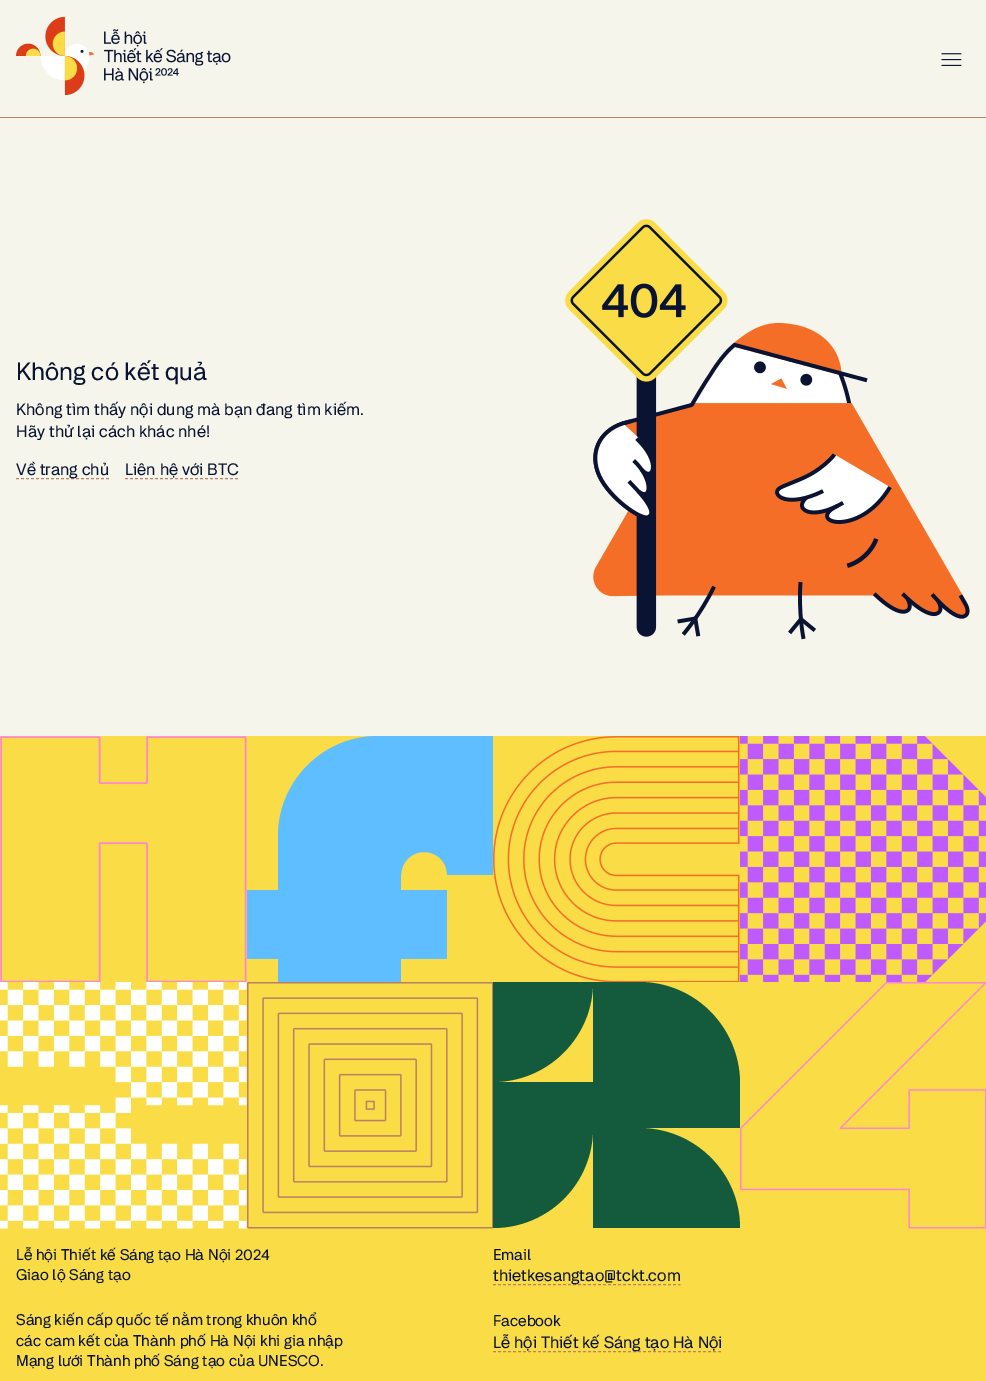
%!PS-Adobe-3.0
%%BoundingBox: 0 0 986 1381
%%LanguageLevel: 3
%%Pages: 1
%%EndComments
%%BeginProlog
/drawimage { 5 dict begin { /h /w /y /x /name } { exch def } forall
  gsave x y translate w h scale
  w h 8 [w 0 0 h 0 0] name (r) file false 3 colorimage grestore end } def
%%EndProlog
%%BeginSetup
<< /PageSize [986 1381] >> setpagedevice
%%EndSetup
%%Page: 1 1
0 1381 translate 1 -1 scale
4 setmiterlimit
0.961 0.961 0.922 setrgbcolor
0 0 986 1381 rectfill
0.725 0.51 0.392 setrgbcolor
0 117 986 1 rectfill
(images/1.raw) 16 16 215 80 drawimage
(images/2.raw) 941 53 21 13 drawimage
[3 2] 0 setdash
newpath 16 478.5 moveto 109 478.5 lineto stroke
newpath 125 478.5 moveto 238.5 478.5 lineto stroke
(images/3.raw) 565 219 405 421 drawimage
0.98 0.863 0.275 setrgbcolor
0 736 986 645 rectfill
gsave
0 736 247 246 rectclip
1 0.529 0.824 setrgbcolor
1.5 setlinewidth
1 setlinejoin
[] 0 setdash
newpath 99.5 844 moveto 99.5 981.5 lineto 1 981.5 lineto 1 737 lineto 99.5 737 lineto 99.5 782 lineto 100 783 lineto 146.5 783 lineto 147 782 lineto 147 737 lineto 245.5 737 lineto 245.5 981.5 lineto 147 981.5 lineto 147 844 lineto 146.5 843 lineto 100 843 lineto closepath stroke
grestore
gsave
247 736 246 246 rectclip
0.373 0.745 1 setrgbcolor
newpath 401 982 moveto 401 959 lineto 447 959 lineto 447 890 lineto 401 890 lineto 401 882 400 873 403 866 curveto 413 843 447 850 447 875 curveto 494 875 lineto 494 736 lineto 378 736 lineto 323 736 278 781 278 836 curveto 278 890 lineto 247 890 lineto 247 959 lineto 278 959 lineto 278 982 lineto closepath fill
grestore
(images/4.raw) 493 736 247 246 drawimage
(images/5.raw) 740 736 246 246 drawimage
(images/6.raw) 0 982 247 247 drawimage
(images/7.raw) 247 982 246 247 drawimage
0.078 0.353 0.235 setrgbcolor
newpath 493 982 moveto 593 982 lineto 593 1037 548 1082 493 1082 curveto 593 1082 lineto 593 982 lineto 639 982 lineto 695 982 739 1027 740 1082 curveto 740 1128 lineto 639 1128 lineto 695 1128 740 1173 740 1228 curveto 593 1228 lineto 593 1128 lineto 593 1184 548 1228 493 1228 curveto closepath fill
(images/8.raw) 740 982 246 247 drawimage
0.725 0.51 0.392 setrgbcolor
newpath 493 1284.5 moveto 680.5 1284.5 lineto stroke
newpath 493 1351.5 moveto 673 1351.5 lineto stroke
/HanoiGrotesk-Regular [24 0 0 -24 0 0] selectfont
0.039 0.078 0.196 setrgbcolor
16 380 moveto (Không có kết quả) show
/HanoiGrotesk-Regular [16 0 0 -16 0 0] selectfont
16 415 moveto (Không tìm thấy nội dung mà bạn đang tìm kiếm.) show
16 437 moveto (Hãy thử lại cách khác nhé!) show
16 475 moveto (Về trang chủ) show
125 475 moveto (Liên hệ với BTC) show
/HanoiGrotesk-Regular [15 0 0 -15 0 0] selectfont
16 1260 moveto (Lễ hội Thiết kế Sáng tạo Hà Nội 2024) show
16 1280 moveto (Giao lộ Sáng tạo) show
16 1325 moveto (Sáng kiến cấp quốc tế nằm trong khuôn khổ) show
16 1346 moveto (các cam kết của Thành phố Hà Nội khi gia nhập) show
16 1366 moveto (Mạng lưới Thành phố Sáng tạo của UNESCO.) show
493 1260 moveto (Email) show
/HanoiGrotesk-Regular [16 0 0 -16 0 0] selectfont
493 1281 moveto (thietkesangtao@tckt.com) show
/HanoiGrotesk-Regular [15 0 0 -15 0 0] selectfont
493 1326 moveto (Facebook) show
/HanoiGrotesk-Regular [16 0 0 -16 0 0] selectfont
493 1348 moveto (Lễ hội Thiết kế Sáng tạo Hà Nội) show
0.725 0.51 0.392 setrgbcolor
newpath 673 1351.5 moveto 722.5 1351.5 lineto stroke
showpage
%%EOF
